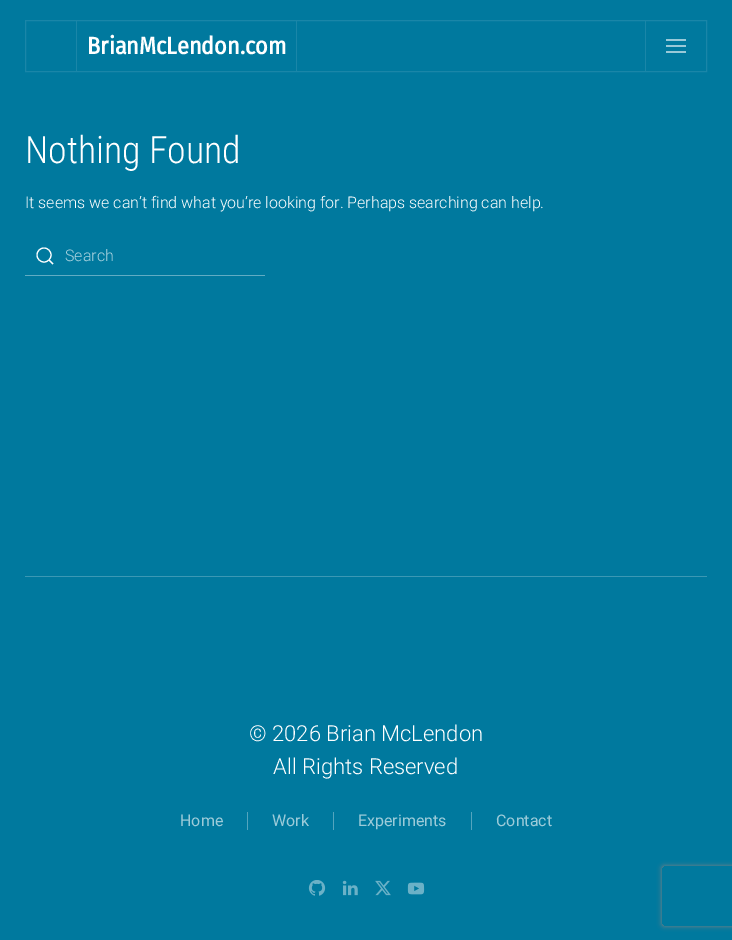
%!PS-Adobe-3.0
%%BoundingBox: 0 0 732 940
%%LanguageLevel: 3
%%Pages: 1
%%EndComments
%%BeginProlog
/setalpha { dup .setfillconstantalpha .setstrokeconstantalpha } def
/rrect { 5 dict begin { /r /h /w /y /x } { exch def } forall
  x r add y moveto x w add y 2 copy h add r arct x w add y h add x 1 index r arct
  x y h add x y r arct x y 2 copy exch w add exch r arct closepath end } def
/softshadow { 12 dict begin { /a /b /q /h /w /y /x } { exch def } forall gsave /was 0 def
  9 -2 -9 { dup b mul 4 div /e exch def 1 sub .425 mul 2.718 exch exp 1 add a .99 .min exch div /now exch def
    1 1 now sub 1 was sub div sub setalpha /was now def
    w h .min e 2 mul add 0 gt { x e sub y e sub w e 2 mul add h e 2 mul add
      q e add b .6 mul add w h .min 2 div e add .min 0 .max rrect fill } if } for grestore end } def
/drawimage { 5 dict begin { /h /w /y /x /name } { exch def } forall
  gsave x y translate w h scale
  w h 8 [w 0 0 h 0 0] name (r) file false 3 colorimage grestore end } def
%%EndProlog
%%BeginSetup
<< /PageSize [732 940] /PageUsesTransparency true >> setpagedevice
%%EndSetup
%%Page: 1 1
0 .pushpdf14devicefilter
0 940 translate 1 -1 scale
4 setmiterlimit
0 0.475 0.62 setrgbcolor
0 0 732 940 rectfill
0.102 0.525 0.659 setrgbcolor
25.5 20.5 681 51 rectstroke
76 21 1 50 rectfill
296 21 1 50 rectfill
645 21 1 50 rectfill
0.6 0.788 0.847 setrgbcolor
666 39 20 2 rectfill
666 45 20 2 rectfill
666 51 20 2 rectfill
1 setgray
1.1 setlinewidth
newpath 44 255 7 0 360 arc closepath stroke
newpath 49 260 moveto 53 264 lineto closepath stroke
0.38 0.675 0.765 setrgbcolor
25 275 240 1 rectfill
0.231 0.596 0.706 setrgbcolor
25 576 682 1 rectfill
0.329 0.647 0.745 setrgbcolor
247 812 1 18 rectfill
333 812 1 18 rectfill
471 812 1 18 rectfill
(images/1.raw) 308 880 18 16 drawimage
(images/2.raw) 342 880 16 16 drawimage
(images/3.raw) 375 880 16 16 drawimage
(images/4.raw) 407 882 18 13 drawimage
gsave
newpath 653 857 moveto 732 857 lineto 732 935 lineto 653 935 lineto closepath 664 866 moveto 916 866 lineto 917 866 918 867 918 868 curveto 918 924 lineto 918 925 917 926 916 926 curveto 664 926 lineto 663 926 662 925 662 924 curveto 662 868 lineto 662 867 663 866 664 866 curveto closepath eoclip newpath
0.502 setgray
662 866 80 60 2 2.5 1 softshadow
grestore
/FiraSansCondensed-Bold [24 0 0 -24 0 0] selectfont
1 setgray
87 54 moveto (BrianMcLendon.com) show
/RobotoCondensed-Light [37.75 0 0 -37.75 0 0] selectfont
25 163 moveto (Nothing Found) show
/Roboto-Light [16 0 0 -16 0 0] selectfont
25 208 moveto (It seems we can’t find what you’re looking for. Perhaps searching can help.) show
0.671 0.827 0.875 setrgbcolor
65 261 moveto (Search) show
/Roboto-Light [22 0 0 -22 0 0] selectfont
1 setgray
249 741 moveto (© 2026 Brian McLendon) show
273 774 moveto (All Rights Reserved) show
/Roboto-Regular [16 0 0 -16 0 0] selectfont
0.612 0.796 0.851 setrgbcolor
180 826 moveto (Home) show
272 826 moveto (Work) show
358 826 moveto (Experiments) show
496 826 moveto (Contact) show
.poppdf14devicefilter showpage
%%EOF
